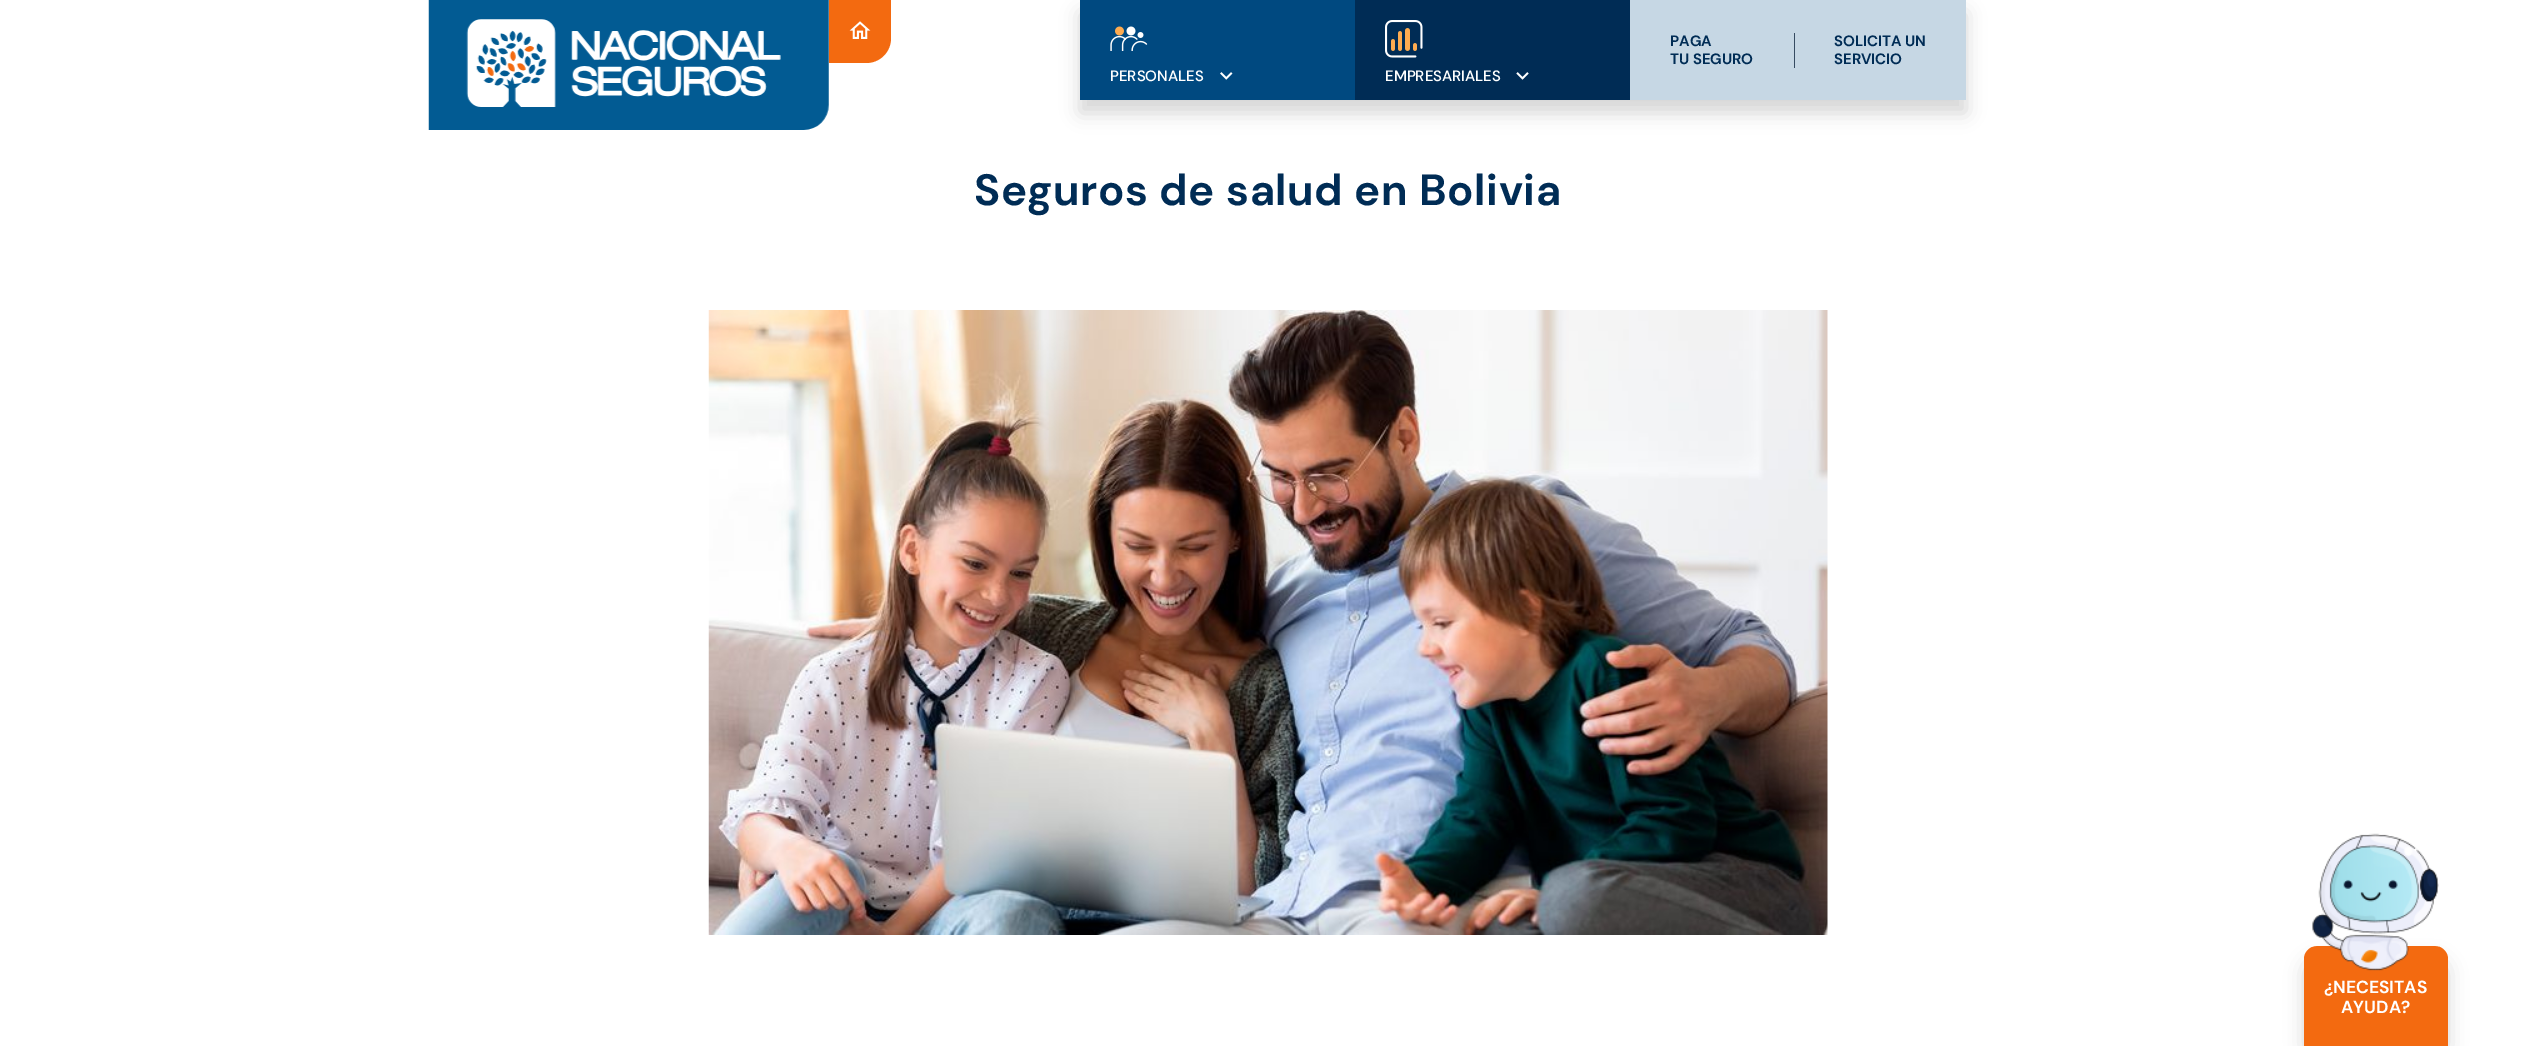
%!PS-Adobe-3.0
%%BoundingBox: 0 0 2534 1046
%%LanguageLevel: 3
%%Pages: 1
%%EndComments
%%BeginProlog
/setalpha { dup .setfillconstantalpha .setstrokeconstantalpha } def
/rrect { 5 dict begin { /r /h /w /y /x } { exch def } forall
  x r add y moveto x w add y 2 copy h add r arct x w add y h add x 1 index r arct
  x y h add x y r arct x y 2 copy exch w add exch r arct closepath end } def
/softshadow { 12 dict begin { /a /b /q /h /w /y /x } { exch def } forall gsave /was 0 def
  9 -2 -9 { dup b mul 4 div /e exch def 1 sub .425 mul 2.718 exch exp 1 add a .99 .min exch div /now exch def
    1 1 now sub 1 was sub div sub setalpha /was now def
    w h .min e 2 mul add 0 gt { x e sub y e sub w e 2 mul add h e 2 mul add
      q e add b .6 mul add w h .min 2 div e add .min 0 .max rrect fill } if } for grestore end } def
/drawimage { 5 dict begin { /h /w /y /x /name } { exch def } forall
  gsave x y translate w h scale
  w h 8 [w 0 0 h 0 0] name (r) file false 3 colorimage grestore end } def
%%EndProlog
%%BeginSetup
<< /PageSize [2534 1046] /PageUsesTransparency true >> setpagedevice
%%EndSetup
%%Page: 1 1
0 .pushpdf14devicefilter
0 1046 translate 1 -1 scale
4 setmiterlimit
1 setgray
0 0 2534 1046 rectfill
(images/1.raw) 428 0 401 130 drawimage
0.953 0.416 0.063 setrgbcolor
newpath 829 0 moveto 891 0 lineto 891 38 lineto 891 52 880 63 866 63 curveto 829 63 lineto closepath fill
(images/2.raw) 849 21 22 18 drawimage
0 setgray
1080 13 886 100 0 9.5 0.16 softshadow
0.776 0.843 0.894 setrgbcolor
1630 0 336 100 rectfill
0.212 0.294 0.38 setrgbcolor
1794 33 1 35 rectfill
0 0.286 0.502 setrgbcolor
1080 0 275 100 rectfill
(images/3.raw) 1110 26 38 25 drawimage
(images/4.raw) 1220 72 13 8 drawimage
0 0.173 0.333 setrgbcolor
1355 0 275 100 rectfill
(images/5.raw) 1385 20 38 38 drawimage
(images/6.raw) 1516 72 13 8 drawimage
(images/7.raw) 708 310 1120 625 drawimage
0 setgray
2304 959 144 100 13 9.5 0.16 softshadow
0.953 0.416 0.063 setrgbcolor
newpath 2317 946 moveto 2435 946 lineto 2442 946 2448 952 2448 959 curveto 2448 1046 lineto 2304 1046 lineto 2304 959 lineto 2304 952 2310 946 2317 946 curveto closepath fill
(images/8.raw) 2312 833 127 138 drawimage
/DMSans-Bold [15 0 0 -15 0 0] selectfont
0 0.173 0.333 setrgbcolor
1670 46 moveto (PAGA) show
1670 64 moveto (TU SEGURO) show
1834 46 moveto (SOLICITA UN) show
1834 64 moveto (SERVICIO) show
/DMSans-Medium [15 0 0 -15 0 0] selectfont
1 setgray
1110 81 moveto (PERSONALES) show
1385 81 moveto (EMPRESARIALES) show
/DMSans-Bold [43.75 0 0 -43.75 0 0] selectfont
0 0.173 0.333 setrgbcolor
974 205 moveto 0.55 0 (Seguros de salud en Bolivia) ashow
/DMSans-Bold [17.5 0 0 -17.5 0 0] selectfont
1 setgray
2324 993 moveto (¿NECESITAS) show
2341 1013 moveto (AYUDA?) show
.poppdf14devicefilter showpage
%%EOF
